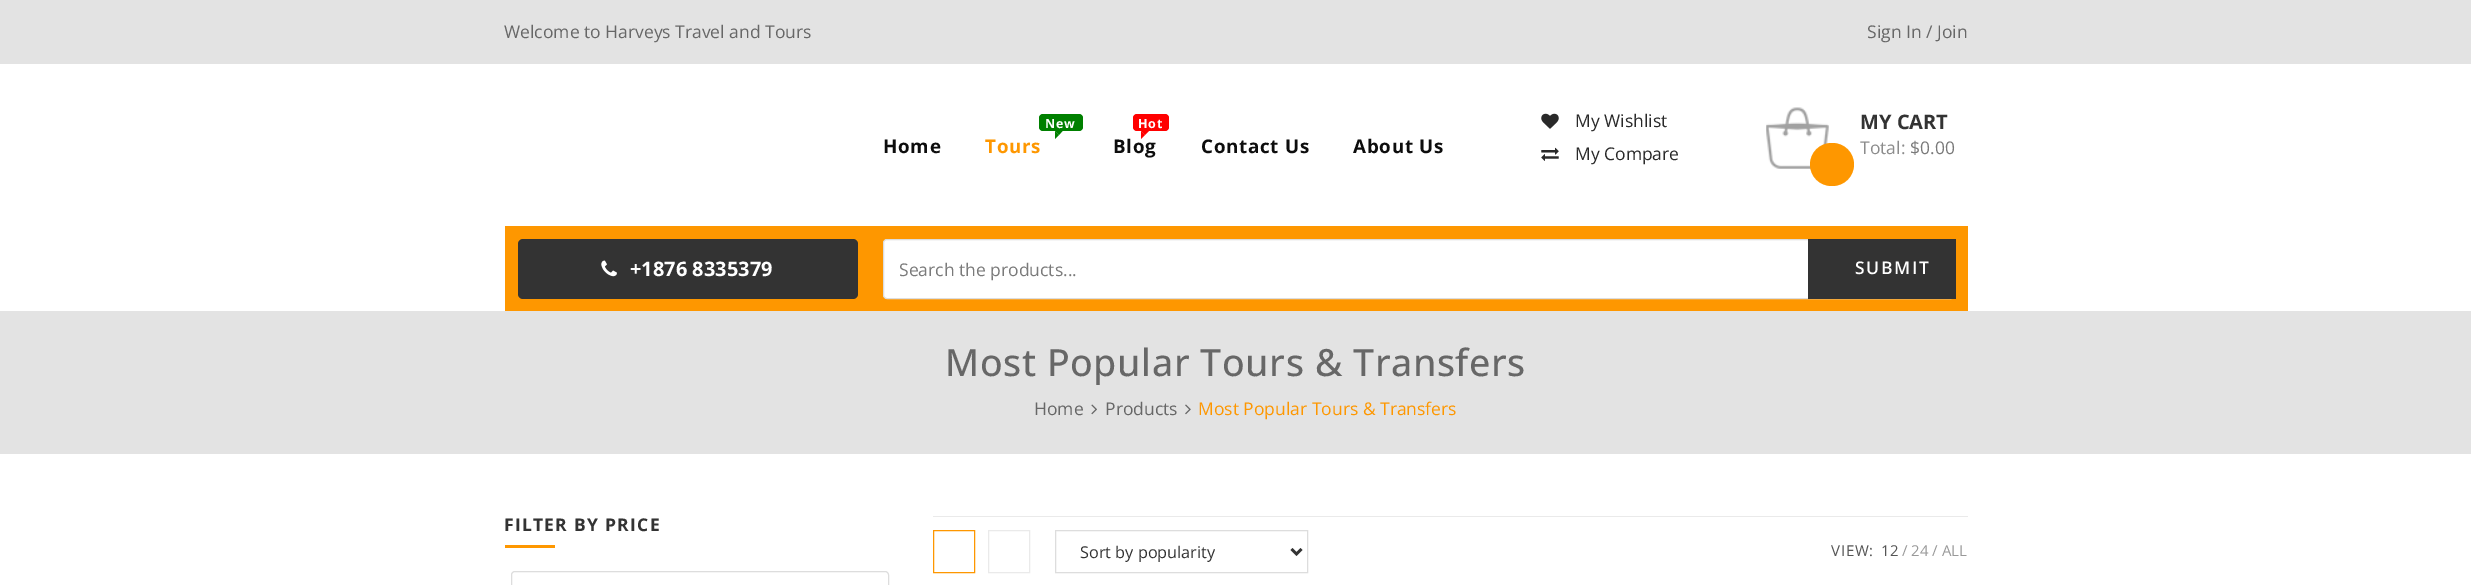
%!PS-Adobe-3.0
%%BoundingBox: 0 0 2471 585
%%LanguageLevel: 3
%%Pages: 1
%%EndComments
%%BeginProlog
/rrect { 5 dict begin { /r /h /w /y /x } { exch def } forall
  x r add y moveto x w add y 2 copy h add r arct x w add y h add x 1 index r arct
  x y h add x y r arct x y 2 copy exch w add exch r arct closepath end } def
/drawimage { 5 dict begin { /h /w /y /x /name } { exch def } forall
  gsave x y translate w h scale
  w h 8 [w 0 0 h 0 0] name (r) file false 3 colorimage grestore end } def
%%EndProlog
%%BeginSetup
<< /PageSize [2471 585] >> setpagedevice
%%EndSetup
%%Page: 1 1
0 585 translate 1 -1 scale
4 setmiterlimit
1 setgray
0 0 2471 585 rectfill
0.89 setgray
0 0 2471 64 rectfill
0 0.502 0 setrgbcolor
1039 114 44 17 4 rrect fill
newpath 1055 131 moveto 1062.5 131 lineto 1059 135 lineto closepath fill
newpath 1055 139 moveto 1055 131 lineto 1059 135 lineto closepath fill
1 0 0 setrgbcolor
1133 114 36 17 4 rrect fill
newpath 1141 131 moveto 1149 131 lineto 1145 135 lineto closepath fill
(images/1.raw) 1541 113 18 16 drawimage
(images/2.raw) 1541 147 18 14 drawimage
(images/3.raw) 1766 107 63 62 drawimage
0.996 0.592 0 setrgbcolor
1810 143 44 43 21.5 rrect fill
505 226 1463 85 rectfill
0.2 setgray
518 239 340 60 5 rrect fill
(images/4.raw) 601 260 16 17 drawimage
1 setgray
883.5 239.5 1071 59 3.5 rrect gsave fill grestore
0.867 setgray
stroke
0.2 setgray
1808 239 148 60 rectfill
0.89 setgray
0 311 2471 143 rectfill
(images/5.raw) 1091 404 6 11 drawimage
(images/6.raw) 1185 404 6 11 drawimage
0.996 0.592 0 setrgbcolor
505 545 50 3 rectfill
0.867 setgray
511.5 571.5 377 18 3.5 rrect stroke
0.918 setgray
933 516 1035 1 rectfill
0.996 0.592 0 setrgbcolor
933.5 530.5 41 42 rectstroke
0.918 setgray
988.5 530.5 41 42 rectstroke
0.867 setgray
1055.5 530.5 252 42 rectstroke
0.2 setgray
2.5 setlinewidth
newpath 1291.5 549 moveto 1296.5 554 lineto 1301.5 549 lineto stroke
/OpenSans-Regular [17.5 0 0 -17.5 0 0] selectfont
0.404 setgray
504 38 moveto (Welcome to Harveys Travel and Tours) show
1867 38 moveto (Sign In / Join) show
/OpenSans-Bold [18.75 0 0 -18.75 0 0] selectfont
0.051 setgray
883 153 moveto 0.75 0 (Home) ashow
/OpenSans-Bold [12.5 0 0 -12.5 0 0] selectfont
1 setgray
1045 128 moveto 0.75 0 (New) ashow
/OpenSans-Bold [18.75 0 0 -18.75 0 0] selectfont
0.996 0.592 0 setrgbcolor
985 153 moveto 0.75 0 (Tours) ashow
/OpenSans-Bold [12.5 0 0 -12.5 0 0] selectfont
1 setgray
1138 128 moveto 0.75 0 (Hot) ashow
/OpenSans-Bold [18.75 0 0 -18.75 0 0] selectfont
0.051 setgray
1113 153 moveto 0.75 0 (Blog) ashow
1 0 0 setrgbcolor
newpath 1141 139 moveto 1141 131 lineto 1145 135 lineto closepath fill
0.051 setgray
1201 153 moveto 0.75 0 (Contact Us) ashow
1353 153 moveto 0.75 0 (About Us) ashow
/OpenSans-Regular [17.5 0 0 -17.5 0 0] selectfont
0.161 setgray
1575 127 moveto (My Wishlist) show
1575 160 moveto (My Compare) show
/OpenSans-Bold [20 0 0 -20 0 0] selectfont
0.2 setgray
1860 129 moveto (MY CART) show
/OpenSans-Regular [17.5 0 0 -17.5 0 0] selectfont
0.549 setgray
1860 154 moveto (Total:) show
0.478 setgray
1910 154 moveto ($0.00) show
/OpenSans-Bold [20 0 0 -20 0 0] selectfont
1 setgray
630 276 moveto (+1876 8335379) show
/OpenSans-Regular [17.5 0 0 -17.5 0 0] selectfont
0.478 setgray
899 276 moveto (Search the products...) show
/OpenSans-SemiBold [17.5 0 0 -17.5 0 0] selectfont
1 setgray
1855 274 moveto 1.75 0 (SUBMIT) ashow
/OpenSans-Medium [37.5 0 0 -37.5 0 0] selectfont
0.404 setgray
945 376 moveto 0.6 0 (Most Popular Tours & Transfers) ashow
/OpenSans-Regular [17.5 0 0 -17.5 0 0] selectfont
1034 415 moveto (Home) show
1105 415 moveto (Products) show
0.996 0.592 0 setrgbcolor
1198 415 moveto (Most Popular Tours & Transfers) show
/OpenSans-Bold [17.5 0 0 -17.5 0 0] selectfont
0.2 setgray
504 531 moveto 1.25 0 (FILTER BY PRICE) ashow
/OpenSans-Regular [16.25 0 0 -16.25 0 0] selectfont
1080 558 moveto (Sort by popularity) show
/OpenSans-Regular [15 0 0 -15 0 0] selectfont
0.333 setgray
1831 556 moveto 0.75 0 (VIEW:) ashow
1881 556 moveto (12) show
0.6 setgray
1902 556 moveto (/ 24 / ALL) show
showpage
%%EOF
